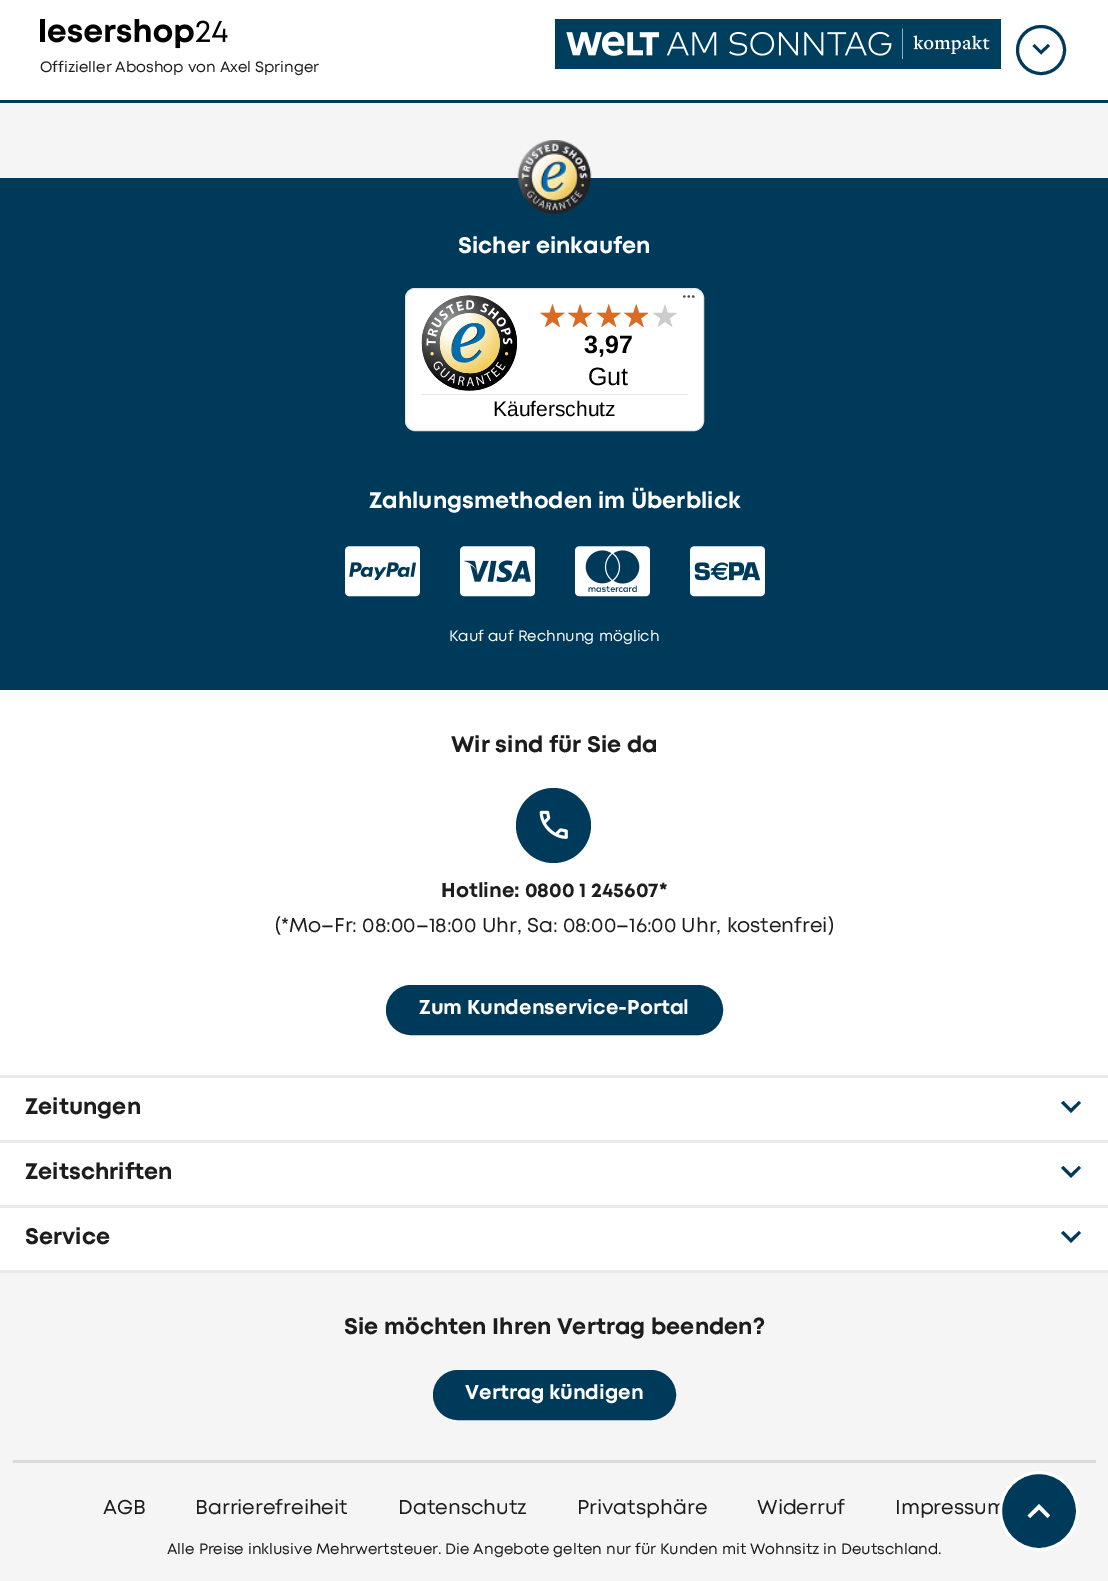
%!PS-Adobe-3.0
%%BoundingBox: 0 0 1108 1581
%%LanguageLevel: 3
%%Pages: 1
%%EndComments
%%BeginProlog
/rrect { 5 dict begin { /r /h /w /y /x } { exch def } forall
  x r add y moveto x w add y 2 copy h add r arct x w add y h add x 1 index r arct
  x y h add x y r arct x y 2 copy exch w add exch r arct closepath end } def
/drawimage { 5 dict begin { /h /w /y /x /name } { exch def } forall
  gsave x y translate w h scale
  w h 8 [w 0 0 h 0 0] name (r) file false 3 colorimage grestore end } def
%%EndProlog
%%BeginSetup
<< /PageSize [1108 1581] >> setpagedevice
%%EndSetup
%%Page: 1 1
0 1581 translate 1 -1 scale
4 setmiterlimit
0.961 setgray
0 0 1108 1581 rectfill
1 setgray
0 0 1108 100 rectfill
0 0.227 0.353 setrgbcolor
0 100 1108 3 rectfill
(images/1.raw) 40 19 188 30 drawimage
(images/2.raw) 555 19 446 50 drawimage
3 setlinewidth
newpath 1041 50 23.5 0 360 arc closepath stroke
newpath 1041 54.5 moveto 1032.5 46 lineto 1034.5 44 lineto 1041 50.5 lineto 1048 44 lineto 1050 46 lineto closepath fill
0 178 1108 512 rectfill
(images/3.raw) 517 140 75 74 drawimage
1 setgray
405.5 288.5 298 142 9.5 rrect gsave fill grestore
0.898 setgray
1 setlinewidth
stroke
(images/4.raw) 683 295 12 3 drawimage
(images/5.raw) 421 295 97 96 drawimage
(images/6.raw) 540 304 25 23 drawimage
(images/7.raw) 569 304 23 23 drawimage
(images/8.raw) 596 304 25 23 drawimage
(images/9.raw) 624 304 24 23 drawimage
(images/10.raw) 653 304 24 23 drawimage
(images/11.raw) 540 304 25 23 drawimage
(images/12.raw) 568 304 24 23 drawimage
(images/13.raw) 596 304 25 23 drawimage
(images/14.raw) 624 304 25 23 drawimage
421 394 267 1 rectfill
(images/15.raw) 345 546 75 51 drawimage
(images/16.raw) 460 546 75 51 drawimage
(images/17.raw) 575 546 75 51 drawimage
(images/18.raw) 690 546 75 51 drawimage
1 setgray
0 690 1108 385 rectfill
0 0.227 0.353 setrgbcolor
newpath 553.5 825.5 37.5 0 360 arc closepath fill
(images/19.raw) 539 810 29 29 drawimage
387.5 986.5 334 47 23.5 rrect gsave fill grestore
3 setlinewidth
stroke
1 setgray
0 1078 1108 62 rectfill
0.918 setgray
0 1075 1108 3 rectfill
0 0.227 0.353 setrgbcolor
newpath 1071 1113 moveto 1061 1103 lineto 1063.5 1101 lineto 1071 1108.5 lineto 1079 1101 lineto 1081 1103 lineto closepath fill
1 setgray
0 1143 1108 62 rectfill
0.918 setgray
0 1140 1108 3 rectfill
0 0.227 0.353 setrgbcolor
newpath 1071 1178 moveto 1061 1168 lineto 1063.5 1166 lineto 1071 1173.5 lineto 1079 1166 lineto 1081 1168 lineto closepath fill
1 setgray
0 1208 1108 62 rectfill
0.918 setgray
0 1205 1108 3 rectfill
0 1270 1108 3 rectfill
0 0.227 0.353 setrgbcolor
newpath 1071 1243 moveto 1061 1233 lineto 1063.5 1231 lineto 1071 1238.5 lineto 1079 1231 lineto 1081 1233 lineto closepath fill
0.855 setgray
13 1460 1083 3 rectfill
0 0.227 0.353 setrgbcolor
434.5 1371.5 240 47 23.5 rrect gsave fill grestore
stroke
/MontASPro-Regular [15 0 0 -15 0 0] selectfont
0.114 setgray
40 72 moveto (Offizieller Aboshop von Axel Springer) show
/MontASPro-Bold [22.5 0 0 -22.5 0 0] selectfont
1 setgray
458 253 moveto (Sicher einkaufen) show
/LiberationSans-Bold [25 0 0 -25 0 0] selectfont
0 setgray
584 353 moveto (3,97) show
/LiberationSans-Regular [25 0 0 -25 0 0] selectfont
588 385 moveto (Gut) show
/LiberationSans-Regular [21 0 0 -21 0 0] selectfont
493 416 moveto (Käuferschutz) show
/MontASPro-Bold [22.5 0 0 -22.5 0 0] selectfont
1 setgray
369 508 moveto (Zahlungsmethoden im Überblick) show
/MontASPro-Regular [15 0 0 -15 0 0] selectfont
449 641 moveto (Kauf auf Rechnung möglich) show
/MontASPro-Bold [22.5 0 0 -22.5 0 0] selectfont
0.114 setgray
451 752 moveto (Wir sind für Sie da) show
/MontASPro-Bold [20 0 0 -20 0 0] selectfont
441 897 moveto (Hotline: 0800 1 245607*) show
/MontASPro-Regular [20 0 0 -20 0 0] selectfont
275 932 moveto (\(*Mo–Fr: 08:00–18:00 Uhr, Sa: 08:00–16:00 Uhr, kostenfrei\)) show
/MontASPro-Bold [20 0 0 -20 0 0] selectfont
1 setgray
419 1014 moveto (Zum Kundenservice-Portal) show
/MontASPro-Bold [22.5 0 0 -22.5 0 0] selectfont
0.114 setgray
25 1114 moveto (Zeitungen) show
25 1179 moveto (Zeitschriften) show
25 1244 moveto (Service) show
344 1334 moveto (Sie möchten Ihren Vertrag beenden?) show
/MontASPro-Bold [20 0 0 -20 0 0] selectfont
1 setgray
465 1399 moveto (Vertrag kündigen) show
/MontASPro-Regular [20 0 0 -20 0 0] selectfont
0.114 setgray
103 1514 moveto (AGB) show
195 1514 moveto (Barrierefreiheit) show
398 1514 moveto (Datenschutz) show
577 1514 moveto (Privatsphäre) show
757 1514 moveto (Widerruf) show
895 1514 moveto (Impressum) show
/MontASPro-Regular [15 0 0 -15 0 0] selectfont
167 1554 moveto (Alle Preise inklusive Mehrwertsteuer. Die Angebote gelten nur für Kunden mit Wohnsitz in Deutschland.) show
0 0.227 0.353 setrgbcolor
newpath 1039 1511 38.5 0 360 arc closepath gsave fill grestore
1 setgray
stroke
newpath 1030 1518 moveto 1027.5 1515.5 lineto 1039 1504 lineto 1050 1515.5 lineto 1047.5 1518 lineto 1039 1509.5 lineto closepath fill
showpage
%%EOF
